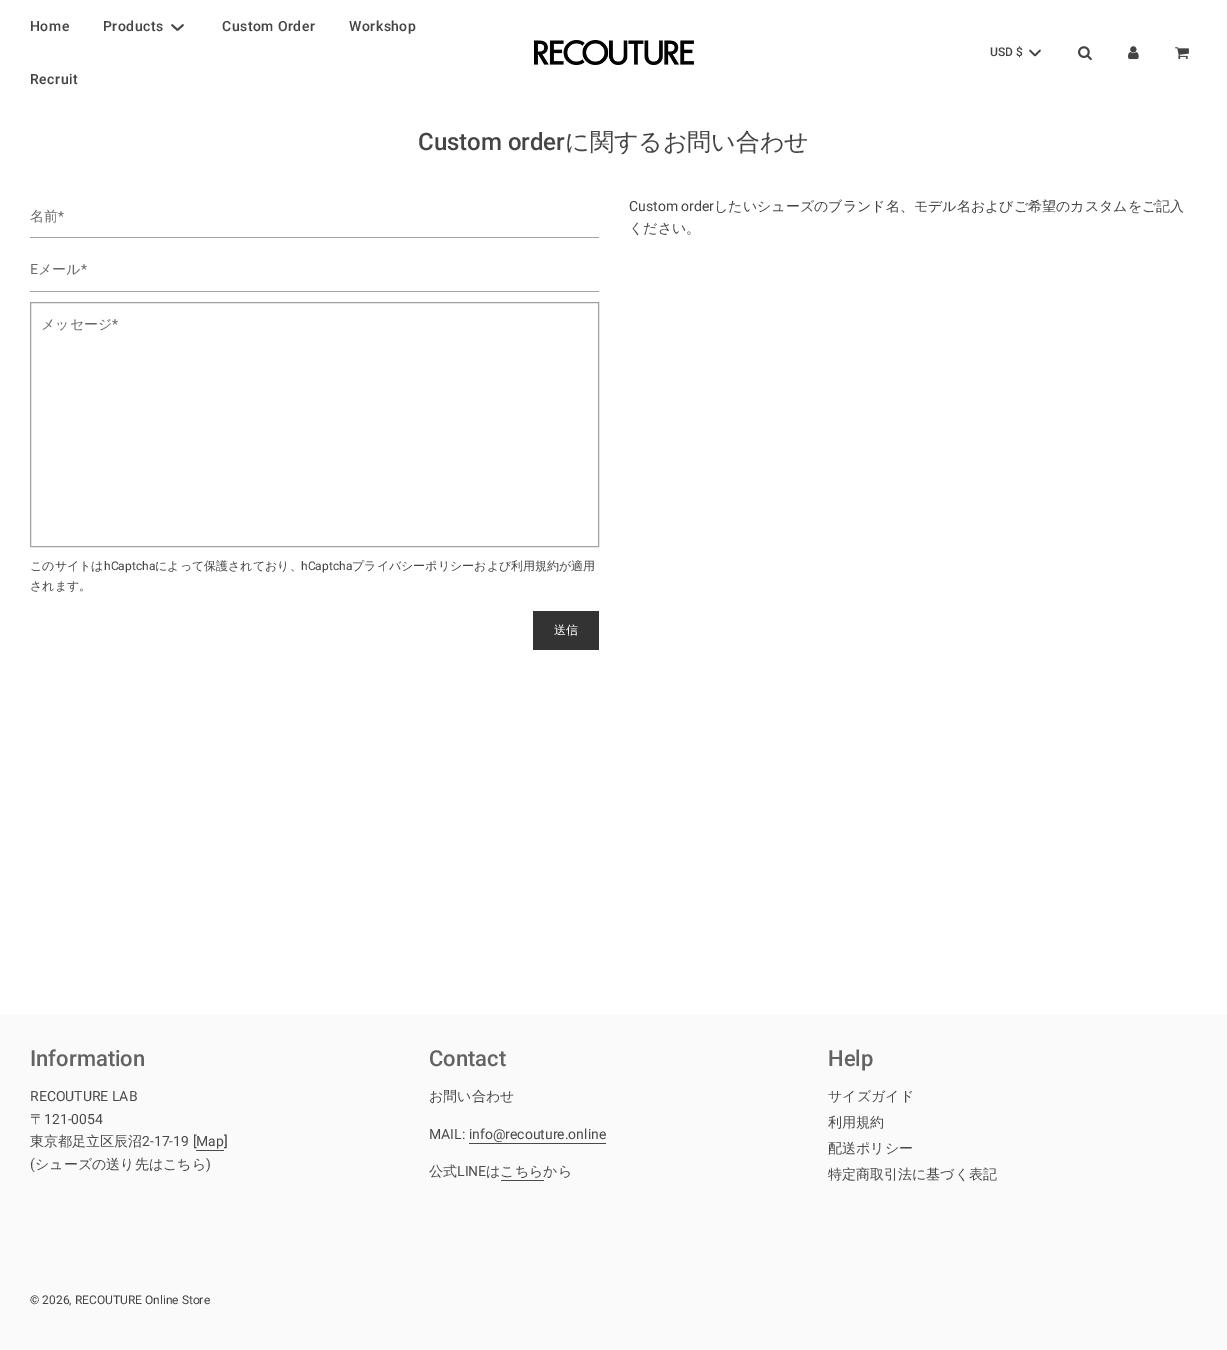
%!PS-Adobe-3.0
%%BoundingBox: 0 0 1227 1350
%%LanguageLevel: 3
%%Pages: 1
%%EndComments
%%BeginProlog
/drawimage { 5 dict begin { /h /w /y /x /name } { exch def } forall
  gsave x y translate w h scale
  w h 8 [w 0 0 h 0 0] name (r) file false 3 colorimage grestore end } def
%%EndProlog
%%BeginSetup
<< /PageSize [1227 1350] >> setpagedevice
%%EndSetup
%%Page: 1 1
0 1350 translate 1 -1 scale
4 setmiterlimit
1 setgray
0 0 1227 1350 rectfill
0.267 setgray
1.8 setlinewidth
1 setlinecap
1 setlinejoin
newpath 172 25 moveto 177.5 30 lineto 183 25 lineto stroke
(images/1.raw) 534 40 160 25 drawimage
1.7 setlinewidth
newpath 1030 50.5 moveto 1035 55.5 lineto 1040 50.5 lineto stroke
(images/2.raw) 1078 46 14 15 drawimage
(images/3.raw) 1128 46 11 14 drawimage
(images/4.raw) 1175 47 14 13 drawimage
0.635 setgray
30 237 569 1 rectfill
30 291 569 1 rectfill
1 setlinewidth
0 setlinecap
0 setlinejoin
30.5 302.5 568 244 rectstroke
0.2 setgray
533 611 66 39 rectfill
0.98 setgray
0 1014 1227 336 rectfill
0.29 setgray
196 1150 28 1 rectfill
469 1143 137 1 rectfill
501 1180 43 1 rectfill
/Roboto-Medium [14 0 0 -14 0 0] selectfont
0.267 setgray
30 31 moveto 0.5 0 (Home) ashow
103 31 moveto 0.5 0 (Products) ashow
222 31 moveto 0.5 0 (Custom Order) ashow
349 31 moveto 0.5 0 (Workshop) ashow
30 84 moveto 0.5 0 (Recruit) ashow
/Roboto-Medium [12 0 0 -12 0 0] selectfont
990 56 moveto (USD $) show
/Roboto-Medium [24 0 0 -24 0 0] selectfont
418 150 moveto (Custom order) show
/WenQuanYiZenHei-Medium [24 0 0 -24 0 0] selectfont
565 150 moveto (に関するお問い合わせ) show
/WenQuanYiZenHei-Medium [14 0 0 -14 0 0] selectfont
0.412 setgray
30 221 moveto (名前) show
/Roboto-Regular [14 0 0 -14 0 0] selectfont
58 221 moveto (*) show
30 274 moveto (E) show
/WenQuanYiZenHei-Medium [14 0 0 -14 0 0] selectfont
38 274 moveto (メール) show
/Roboto-Regular [14 0 0 -14 0 0] selectfont
81 274 moveto (*) show
/WenQuanYiZenHei-Medium [14 0 0 -14 0 0] selectfont
41 329 moveto (メッセージ) show
/Roboto-Regular [14 0 0 -14 0 0] selectfont
112 329 moveto (*) show
/WenQuanYiZenHei-Medium [12 0 0 -12 0 0] selectfont
0.267 setgray
30 570 moveto (このサイトは) show
/Roboto-Regular [12 0 0 -12 0 0] selectfont
104 570 moveto (hCaptcha) show
/WenQuanYiZenHei-Medium [12 0 0 -12 0 0] selectfont
155 570 moveto (によって保護されており、) show
/Roboto-Regular [12 0 0 -12 0 0] selectfont
301 570 moveto (hCaptcha) show
/WenQuanYiZenHei-Medium [12 0 0 -12 0 0] selectfont
352 570 moveto (プライバシーポリシーおよび利用規約が適用) show
30 590 moveto (されます。) show
1 setgray
554 634 moveto (送信) show
/Roboto-Regular [14 0 0 -14 0 0] selectfont
0.267 setgray
629 211 moveto (Custom order) show
/WenQuanYiZenHei-Medium [14 0 0 -14 0 0] selectfont
714 211 moveto (したいシューズのブランド名、モデル名およびご希望のカスタムをご記入) show
629 233 moveto (ください。) show
/Roboto-Medium [22 0 0 -22 0 0] selectfont
0.388 setgray
30 1066 moveto (Information) show
/Roboto-Regular [14 0 0 -14 0 0] selectfont
0.29 setgray
30 1101 moveto (RECOUTURE LAB) show
/WenQuanYiZenHei-Medium [14 0 0 -14 0 0] selectfont
30 1124 moveto (〒) show
/Roboto-Regular [14 0 0 -14 0 0] selectfont
44 1124 moveto (121-0054) show
/WenQuanYiZenHei-Medium [14 0 0 -14 0 0] selectfont
30 1146 moveto (東京都足立区辰沼) show
/Roboto-Regular [14 0 0 -14 0 0] selectfont
142 1146 moveto (2-17-19 [Map]) show
30 1169 moveto (\() show
/WenQuanYiZenHei-Medium [14 0 0 -14 0 0] selectfont
35 1169 moveto (シューズの送り先はこちら) show
/Roboto-Regular [14 0 0 -14 0 0] selectfont
206 1169 moveto (\)) show
/Roboto-Medium [22 0 0 -22 0 0] selectfont
0.388 setgray
429 1066 moveto (Contact) show
/WenQuanYiZenHei-Medium [14 0 0 -14 0 0] selectfont
0.29 setgray
429 1101 moveto (お問い合わせ) show
/Roboto-Regular [14 0 0 -14 0 0] selectfont
429 1139 moveto (MAIL: info@recouture.online) show
/WenQuanYiZenHei-Medium [14 0 0 -14 0 0] selectfont
429 1176 moveto (公式) show
/Roboto-Regular [14 0 0 -14 0 0] selectfont
457 1176 moveto (LINE) show
/WenQuanYiZenHei-Medium [14 0 0 -14 0 0] selectfont
486 1176 moveto (はこちらから) show
/Roboto-Medium [22 0 0 -22 0 0] selectfont
0.388 setgray
828 1066 moveto (Help) show
/WenQuanYiZenHei-Medium [14 0 0 -14 0 0] selectfont
0.29 setgray
828 1101 moveto (サイズガイド) show
828 1127 moveto (利用規約) show
828 1153 moveto (配送ポリシー) show
828 1179 moveto (特定商取引法に基づく表記) show
/Roboto-Regular [12 0 0 -12 0 0] selectfont
0.267 setgray
30 1304 moveto (© 2026, RECOUTURE Online Store) show
showpage
%%EOF
